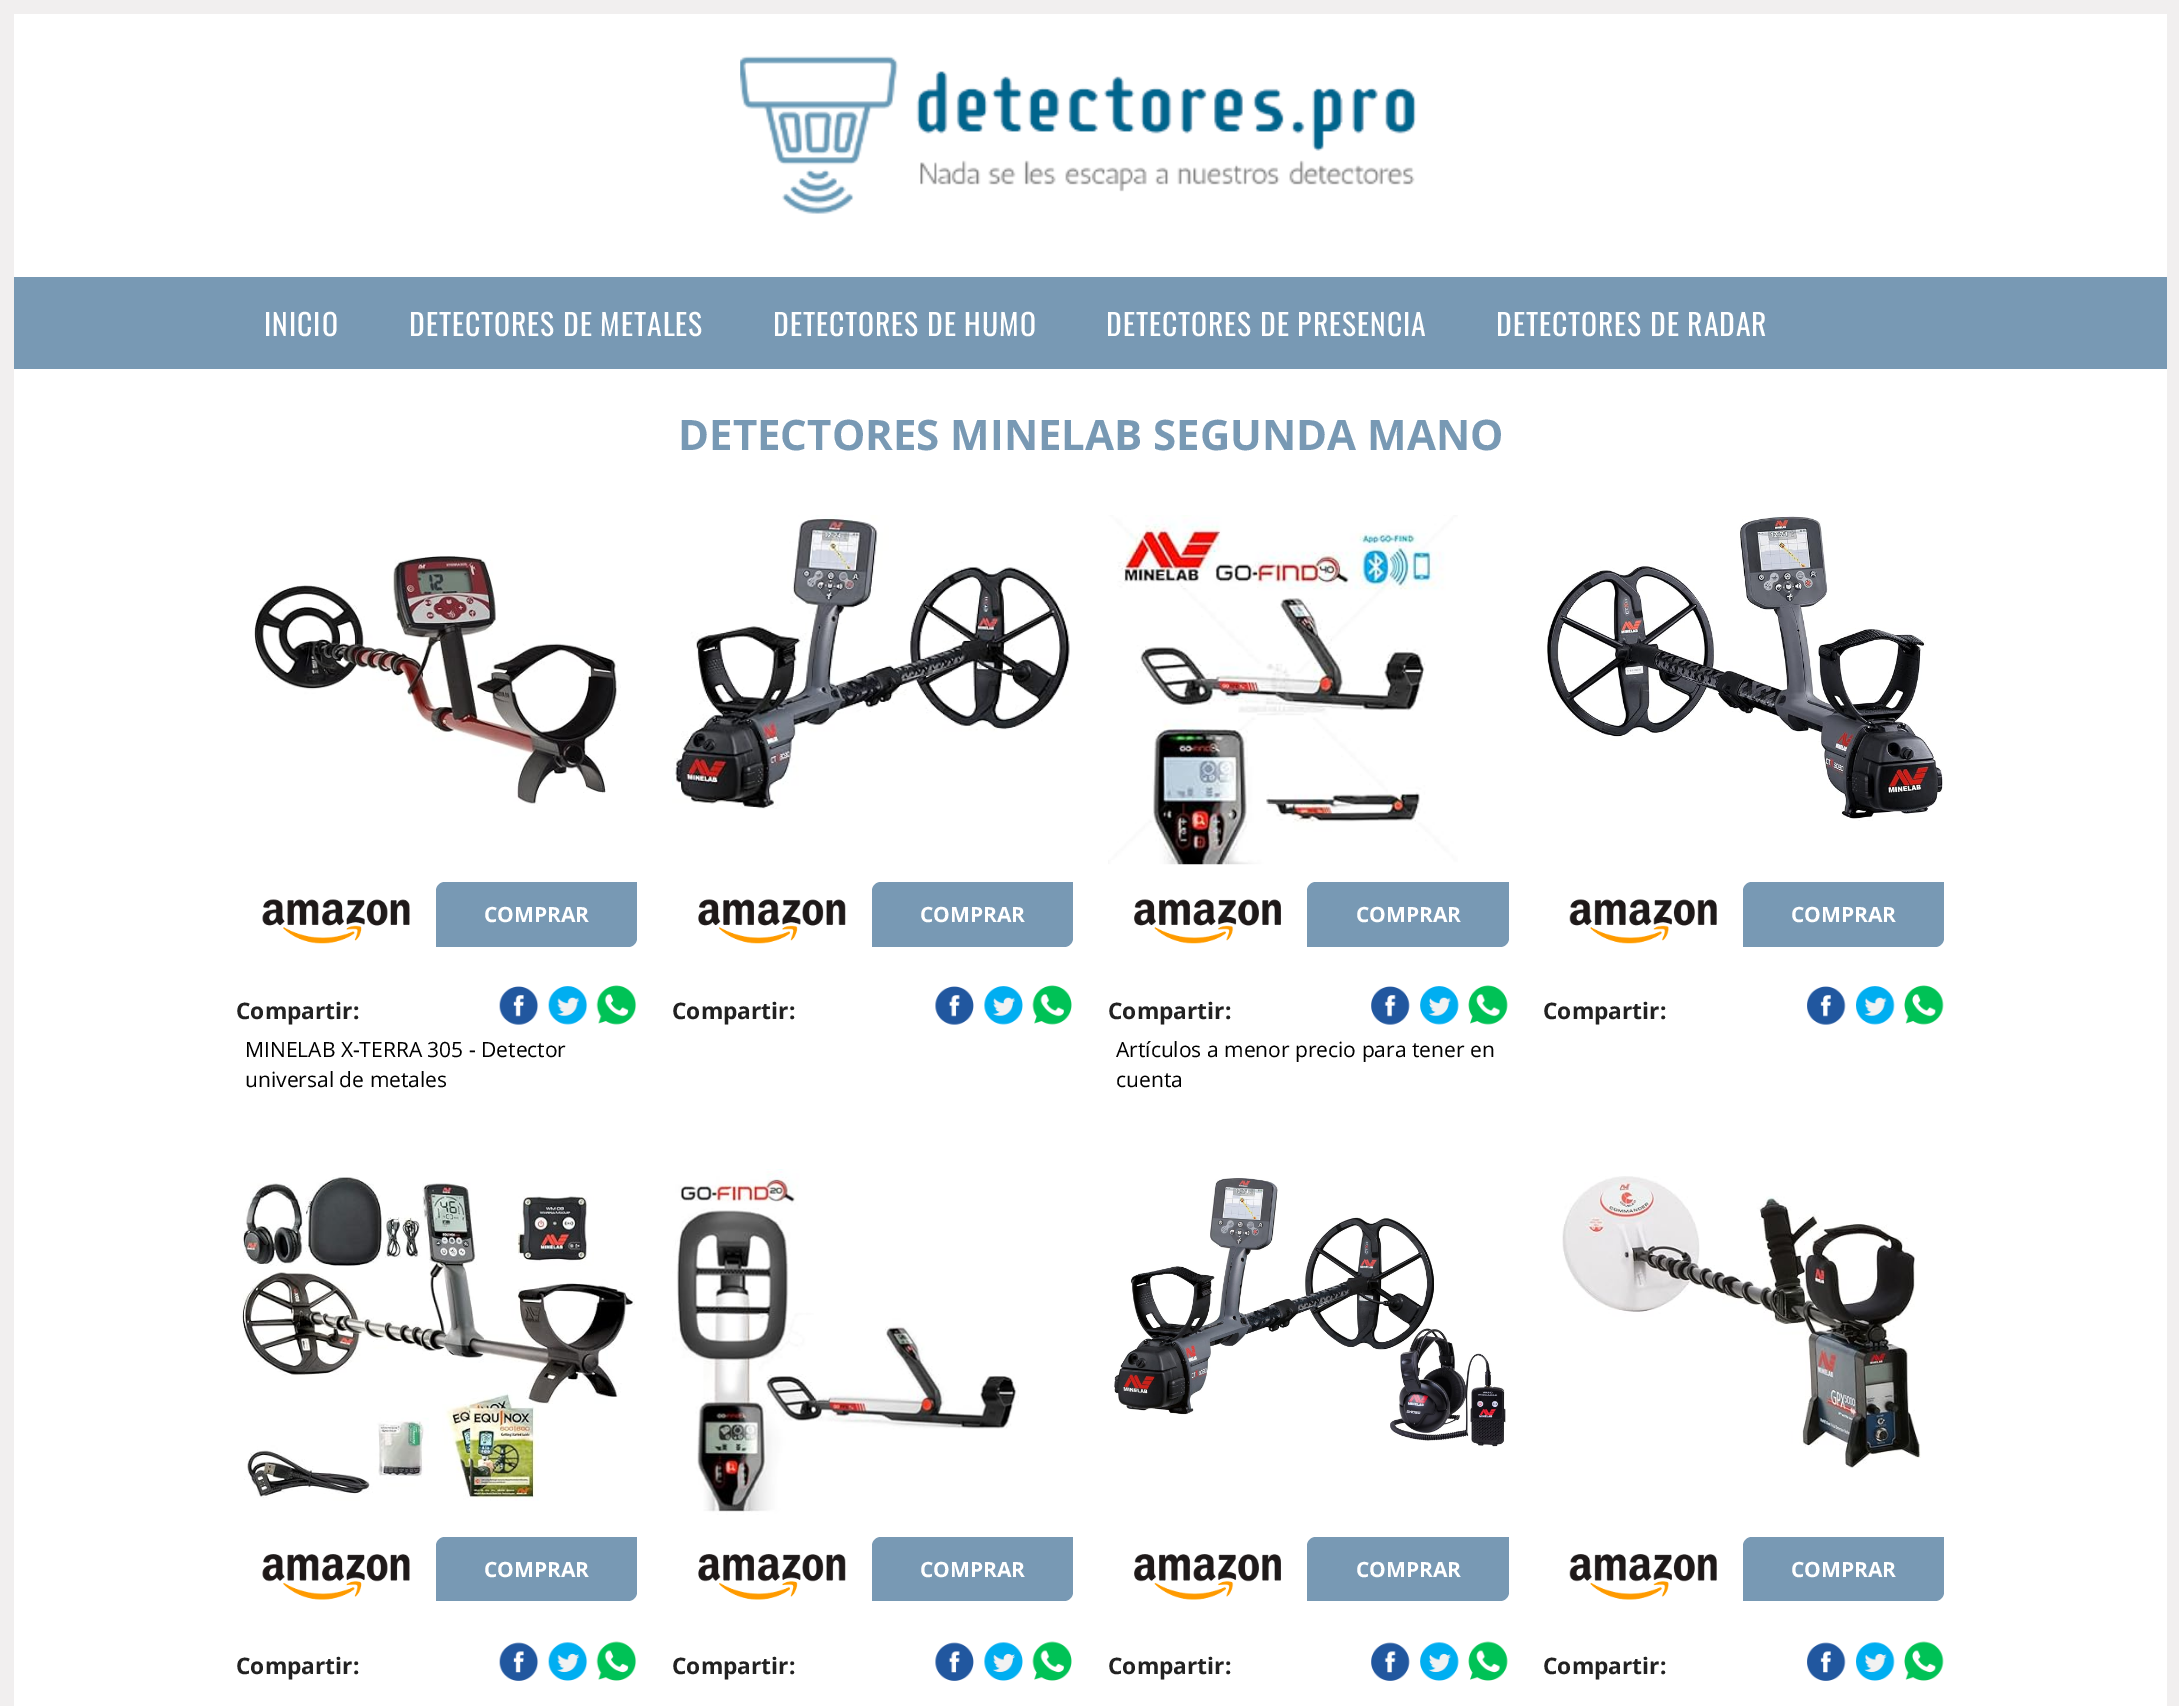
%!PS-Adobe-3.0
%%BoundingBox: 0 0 2179 1706
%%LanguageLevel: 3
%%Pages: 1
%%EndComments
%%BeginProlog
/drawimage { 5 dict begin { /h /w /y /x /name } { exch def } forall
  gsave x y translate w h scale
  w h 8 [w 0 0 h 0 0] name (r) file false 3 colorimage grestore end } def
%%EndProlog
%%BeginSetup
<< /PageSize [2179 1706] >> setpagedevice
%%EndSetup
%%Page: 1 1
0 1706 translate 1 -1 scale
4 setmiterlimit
0.945 0.937 0.937 setrgbcolor
0 0 2179 1706 rectfill
1 setgray
14 14 2153 1692 rectfill
(images/1.raw) 740 56 676 158 drawimage
0.471 0.6 0.706 setrgbcolor
14 277 2153 92 rectfill
(images/2.raw) 254 556 367 250 drawimage
(images/3.raw) 262 899 148 45 drawimage
newpath 445 882 moveto 637 882 lineto 637 938 lineto 637 943 633 947 628 947 curveto 436 947 lineto 436 891 lineto 436 886 440 882 445 882 curveto closepath fill
(images/4.raw) 499 986 40 39 drawimage
(images/5.raw) 548 986 40 39 drawimage
(images/6.raw) 596 985 41 40 drawimage
(images/7.raw) 672 515 398 294 drawimage
(images/8.raw) 698 899 148 45 drawimage
newpath 881 882 moveto 1073 882 lineto 1073 938 lineto 1073 943 1069 947 1064 947 curveto 872 947 lineto 872 891 lineto 872 886 876 882 881 882 curveto closepath fill
(images/9.raw) 935 986 39 39 drawimage
(images/10.raw) 984 986 39 39 drawimage
(images/11.raw) 1032 985 40 40 drawimage
(images/12.raw) 1108 515 350 350 drawimage
(images/13.raw) 1134 899 147 45 drawimage
newpath 1316 882 moveto 1509 882 lineto 1509 938 lineto 1509 943 1505 947 1500 947 curveto 1307 947 lineto 1307 891 lineto 1307 886 1311 882 1316 882 curveto closepath fill
(images/14.raw) 1371 986 39 39 drawimage
(images/15.raw) 1420 986 39 39 drawimage
(images/16.raw) 1468 985 40 40 drawimage
(images/17.raw) 1547 516 396 305 drawimage
(images/18.raw) 1569 899 148 45 drawimage
newpath 1752 882 moveto 1944 882 lineto 1944 938 lineto 1944 943 1940 947 1935 947 curveto 1743 947 lineto 1743 891 lineto 1743 886 1747 882 1752 882 curveto closepath fill
(images/19.raw) 1807 986 39 39 drawimage
(images/20.raw) 1856 986 39 39 drawimage
(images/21.raw) 1904 985 40 40 drawimage
(images/22.raw) 240 1177 395 324 drawimage
(images/23.raw) 262 1554 148 46 drawimage
newpath 445 1537 moveto 637 1537 lineto 637 1592 lineto 637 1597 633 1601 628 1601 curveto 436 1601 lineto 436 1546 lineto 436 1541 440 1537 445 1537 curveto closepath fill
(images/24.raw) 499 1642 40 39 drawimage
(images/25.raw) 548 1642 40 39 drawimage
(images/26.raw) 596 1641 41 40 drawimage
(images/27.raw) 672 1169 347 346 drawimage
(images/28.raw) 698 1554 148 46 drawimage
newpath 881 1537 moveto 1073 1537 lineto 1073 1592 lineto 1073 1597 1069 1601 1064 1601 curveto 872 1601 lineto 872 1546 lineto 872 1541 876 1537 881 1537 curveto closepath fill
(images/29.raw) 935 1642 39 39 drawimage
(images/30.raw) 984 1642 39 39 drawimage
(images/31.raw) 1032 1641 40 40 drawimage
(images/32.raw) 1114 1178 392 269 drawimage
(images/33.raw) 1134 1554 147 46 drawimage
newpath 1316 1537 moveto 1509 1537 lineto 1509 1592 lineto 1509 1597 1505 1601 1500 1601 curveto 1307 1601 lineto 1307 1546 lineto 1307 1541 1311 1537 1316 1537 curveto closepath fill
(images/34.raw) 1371 1642 39 39 drawimage
(images/35.raw) 1420 1642 39 39 drawimage
(images/36.raw) 1468 1641 40 40 drawimage
(images/37.raw) 1562 1176 359 292 drawimage
(images/38.raw) 1569 1554 148 46 drawimage
newpath 1752 1537 moveto 1944 1537 lineto 1944 1592 lineto 1944 1597 1940 1601 1935 1601 curveto 1743 1601 lineto 1743 1546 lineto 1743 1541 1747 1537 1752 1537 curveto closepath fill
(images/39.raw) 1807 1642 39 39 drawimage
(images/40.raw) 1856 1642 39 39 drawimage
(images/41.raw) 1904 1641 40 40 drawimage
/Oswald-Regular [29.75 0 0 -29.75 0 0] selectfont
1 setgray
264 336 moveto 0.9 0 (INICIO) ashow
409 336 moveto 0.9 0 (DETECTORES DE METALES) ashow
773 336 moveto 0.9 0 (DETECTORES DE HUMO) ashow
1106 336 moveto 0.9 0 (DETECTORES DE PRESENCIA) ashow
1496 336 moveto 0.9 0 (DETECTORES DE RADAR) ashow
/OpenSans-Bold [42 0 0 -42 0 0] selectfont
0.471 0.6 0.706 setrgbcolor
678 450 moveto (DETECTORES MINELAB SEGUNDA MANO) show
/OpenSans-Bold [21 0 0 -21 0 0] selectfont
1 setgray
484 922 moveto (COMPRAR) show
/OpenSans-Bold [22.75 0 0 -22.75 0 0] selectfont
0.133 setgray
236 1019 moveto (Compartir:) show
/OpenSans-Regular [21 0 0 -21 0 0] selectfont
0 setgray
245 1057 moveto (MINELAB X-TERRA 305 - Detector) show
245 1087 moveto (universal de metales) show
/OpenSans-Bold [21 0 0 -21 0 0] selectfont
1 setgray
920 922 moveto (COMPRAR) show
/OpenSans-Bold [22.75 0 0 -22.75 0 0] selectfont
0.133 setgray
672 1019 moveto (Compartir:) show
/OpenSans-Bold [21 0 0 -21 0 0] selectfont
1 setgray
1356 922 moveto (COMPRAR) show
/OpenSans-Bold [22.75 0 0 -22.75 0 0] selectfont
0.133 setgray
1108 1019 moveto (Compartir:) show
/OpenSans-Regular [21 0 0 -21 0 0] selectfont
0 setgray
1116 1057 moveto (Artículos a menor precio para tener en) show
1116 1087 moveto (cuenta) show
/OpenSans-Bold [21 0 0 -21 0 0] selectfont
1 setgray
1791 922 moveto (COMPRAR) show
/OpenSans-Bold [22.75 0 0 -22.75 0 0] selectfont
0.133 setgray
1543 1019 moveto (Compartir:) show
/OpenSans-Bold [21 0 0 -21 0 0] selectfont
1 setgray
484 1577 moveto (COMPRAR) show
/OpenSans-Bold [22.75 0 0 -22.75 0 0] selectfont
0.133 setgray
236 1674 moveto (Compartir:) show
/OpenSans-Bold [21 0 0 -21 0 0] selectfont
1 setgray
920 1577 moveto (COMPRAR) show
/OpenSans-Bold [22.75 0 0 -22.75 0 0] selectfont
0.133 setgray
672 1674 moveto (Compartir:) show
/OpenSans-Bold [21 0 0 -21 0 0] selectfont
1 setgray
1356 1577 moveto (COMPRAR) show
/OpenSans-Bold [22.75 0 0 -22.75 0 0] selectfont
0.133 setgray
1108 1674 moveto (Compartir:) show
/OpenSans-Bold [21 0 0 -21 0 0] selectfont
1 setgray
1791 1577 moveto (COMPRAR) show
/OpenSans-Bold [22.75 0 0 -22.75 0 0] selectfont
0.133 setgray
1543 1674 moveto (Compartir:) show
showpage
%%EOF
